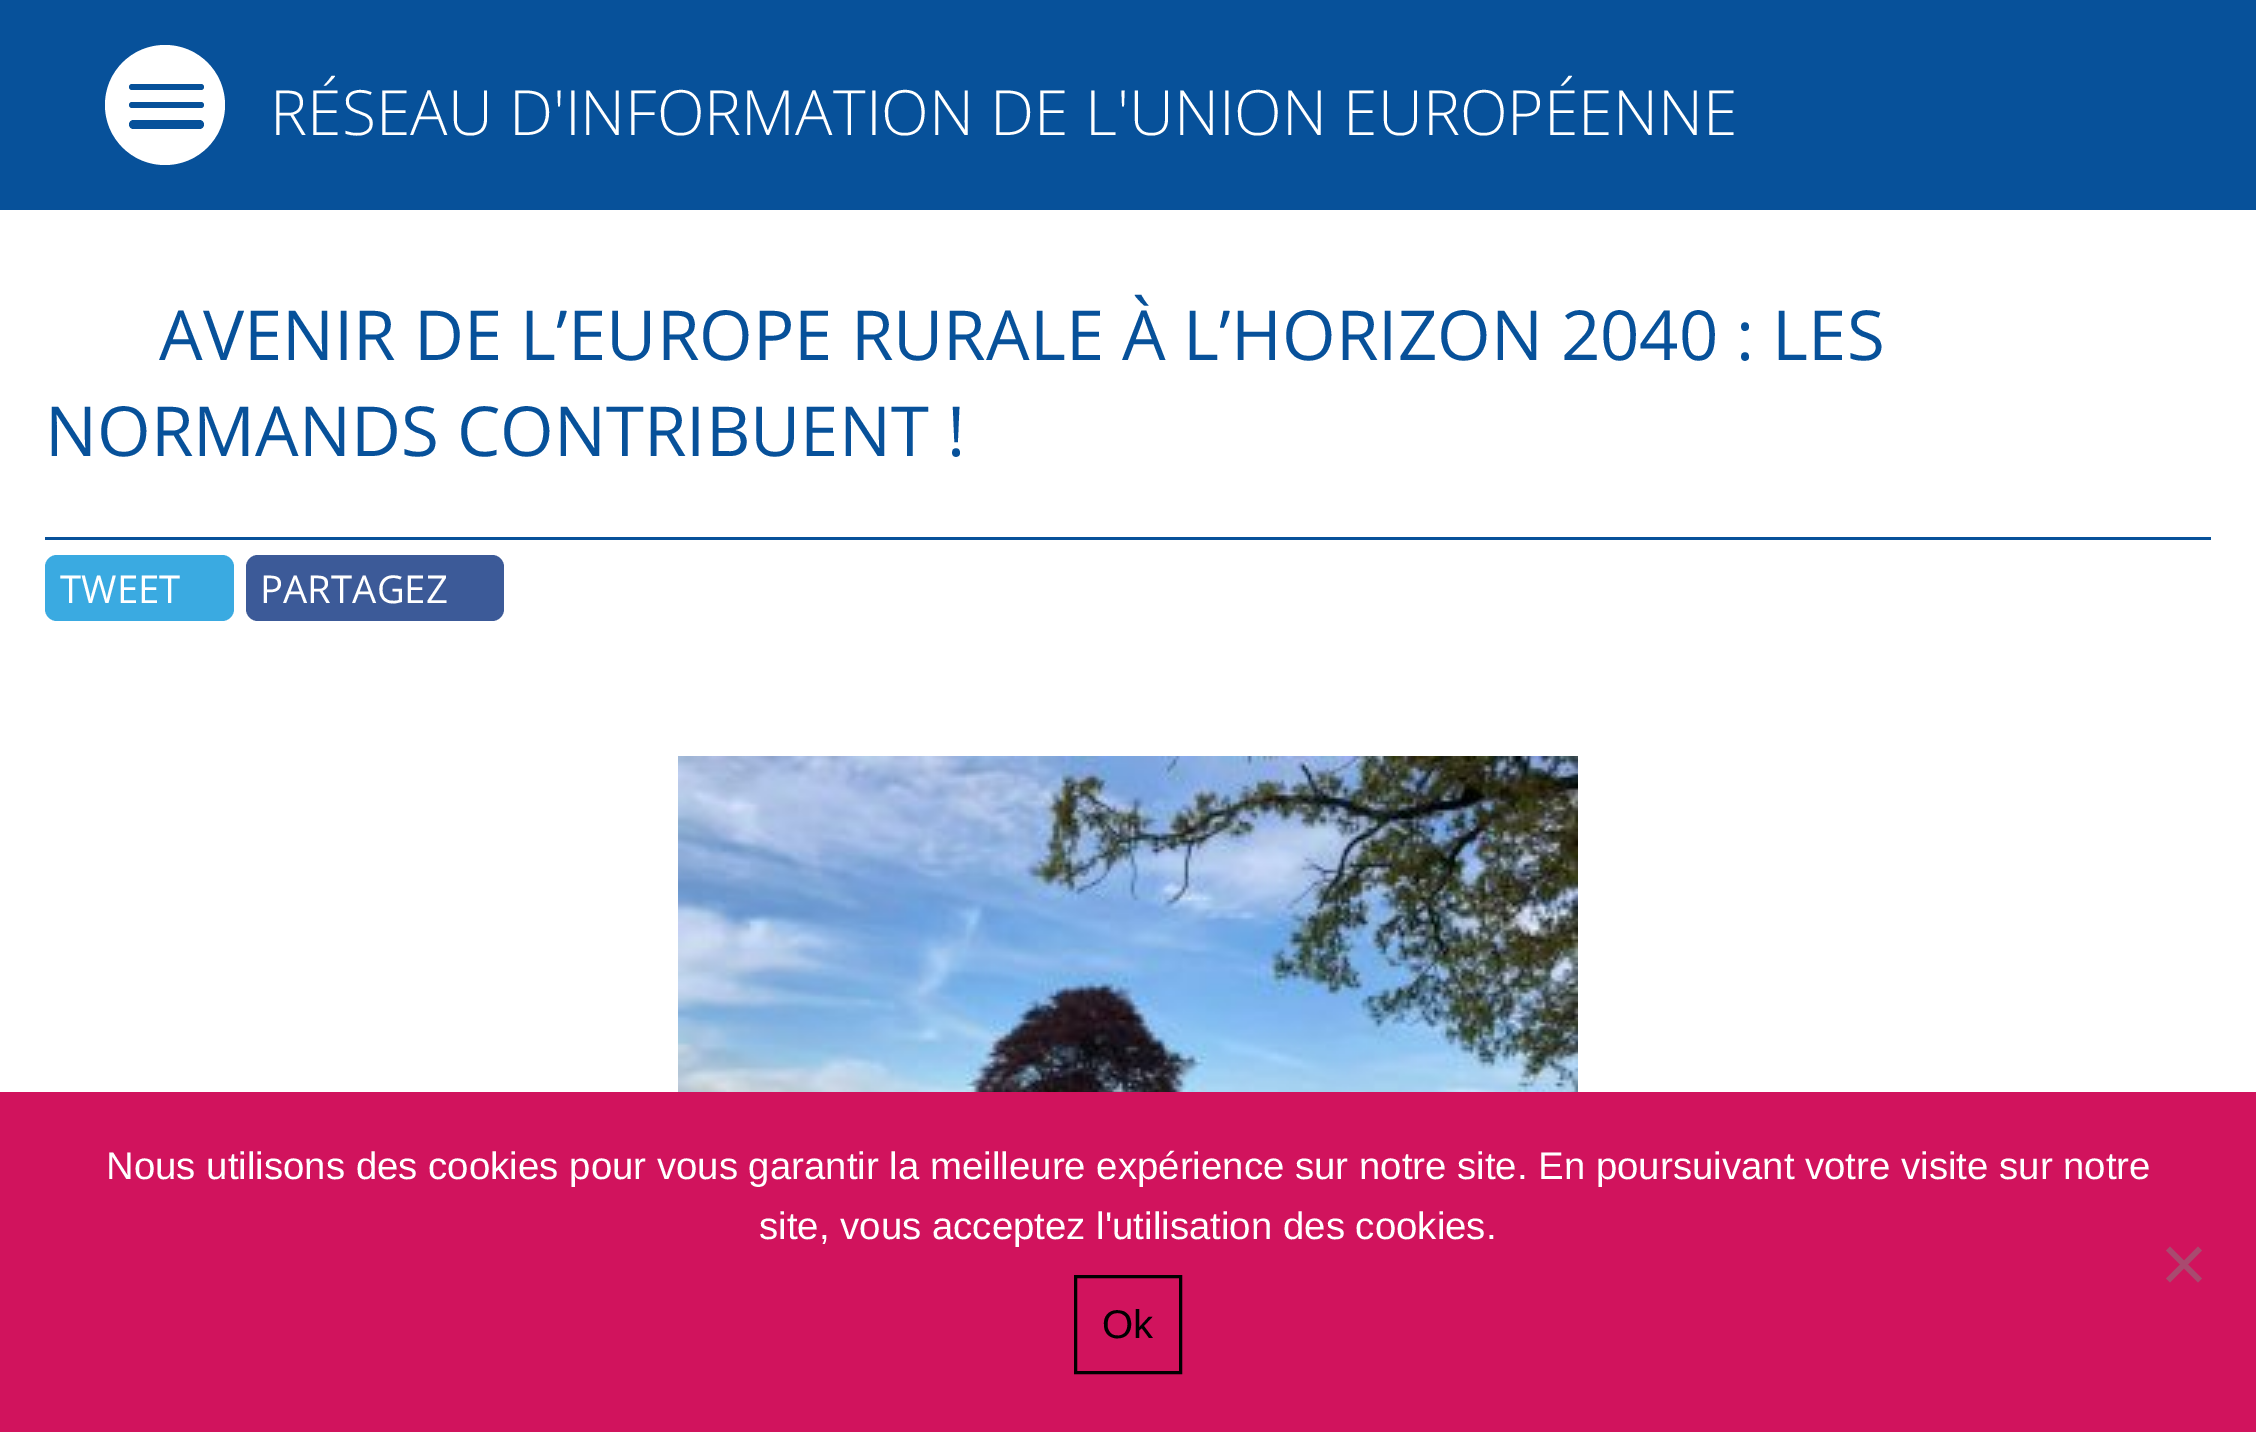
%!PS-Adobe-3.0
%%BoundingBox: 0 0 2256 1432
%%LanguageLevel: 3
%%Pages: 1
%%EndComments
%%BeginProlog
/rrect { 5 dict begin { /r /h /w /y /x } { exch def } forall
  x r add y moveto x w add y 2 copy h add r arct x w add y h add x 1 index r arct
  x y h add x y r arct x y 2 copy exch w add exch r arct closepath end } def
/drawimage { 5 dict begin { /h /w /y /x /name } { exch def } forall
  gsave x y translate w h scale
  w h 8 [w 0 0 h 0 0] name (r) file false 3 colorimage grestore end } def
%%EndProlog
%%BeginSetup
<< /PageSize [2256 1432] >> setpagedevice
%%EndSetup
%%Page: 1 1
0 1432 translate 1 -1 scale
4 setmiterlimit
0.027 0.318 0.604 setrgbcolor
0 0 2256 1432 rectfill
1 setgray
0 210 2256 882 rectfill
newpath 165 105 60 0 360 arc closepath fill
0.027 0.318 0.604 setrgbcolor
129 84 75 6 3 rrect fill
129 102 75 6 3 rrect fill
129 120 75 9 4.5 rrect fill
45 537 2166 3 rectfill
0.227 0.667 0.882 setrgbcolor
45 555 189 66 12 rrect fill
0.235 0.353 0.596 setrgbcolor
246 555 258 66 12 rrect fill
(images/1.raw) 678 756 900 336 drawimage
0.82 0.075 0.365 setrgbcolor
0 1092 2256 340 rectfill
0.663 0.29 0.435 setrgbcolor
newpath 2198 1246.5 moveto 2202 1250.5 lineto 2170 1282.5 lineto 2166 1278.5 lineto closepath fill
newpath 2166 1250.5 moveto 2170 1246.5 lineto 2202 1278.5 lineto 2198 1282.5 lineto closepath fill
0 setgray
3 setlinewidth
1075.5 1276.5 105 96 rectstroke
/OpenSans-Light [62.4 0 0 -62.4 0 0] selectfont
1 setgray
270 135 moveto (RÉSEAU D'INFORMATION DE L'UNION EUROPÉENNE) show
/OpenSans-Regular [69 0 0 -69 0 0] selectfont
0.027 0.318 0.604 setrgbcolor
159 360 moveto (AVENIR DE L’EUROPE RURALE À L’HORIZON 2040 : LES) show
45 456 moveto (NORMANDS CONTRIBUENT !) show
/OpenSans-Regular [38.4 0 0 -38.4 0 0] selectfont
1 setgray
60 603 moveto (TWEET) show
260 603 moveto (PARTAGEZ) show
/LiberationSans-Regular [38.4 0 0 -38.4 0 0] selectfont
106 1179 moveto (Nous utilisons des cookies pour vous garantir la meilleure expérience sur notre site. En poursuivant votre visite sur notre) show
759 1239 moveto (site, vous acceptez l'utilisation des cookies.) show
/LiberationSans-Regular [40 0 0 -40 0 0] selectfont
0 setgray
1102 1338 moveto (Ok) show
showpage
%%EOF
